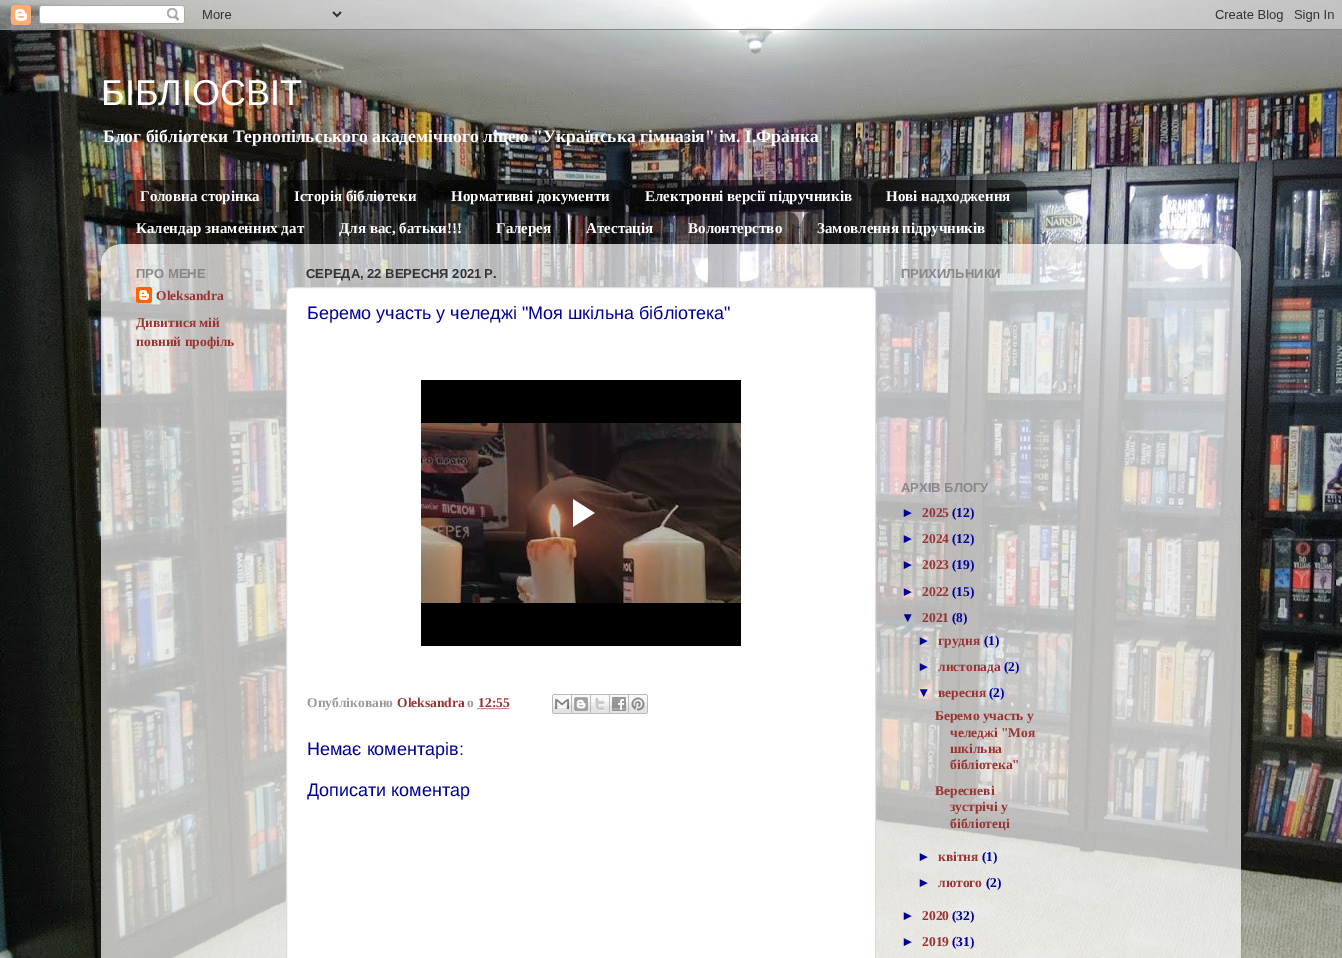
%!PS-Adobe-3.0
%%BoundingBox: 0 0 1342 958
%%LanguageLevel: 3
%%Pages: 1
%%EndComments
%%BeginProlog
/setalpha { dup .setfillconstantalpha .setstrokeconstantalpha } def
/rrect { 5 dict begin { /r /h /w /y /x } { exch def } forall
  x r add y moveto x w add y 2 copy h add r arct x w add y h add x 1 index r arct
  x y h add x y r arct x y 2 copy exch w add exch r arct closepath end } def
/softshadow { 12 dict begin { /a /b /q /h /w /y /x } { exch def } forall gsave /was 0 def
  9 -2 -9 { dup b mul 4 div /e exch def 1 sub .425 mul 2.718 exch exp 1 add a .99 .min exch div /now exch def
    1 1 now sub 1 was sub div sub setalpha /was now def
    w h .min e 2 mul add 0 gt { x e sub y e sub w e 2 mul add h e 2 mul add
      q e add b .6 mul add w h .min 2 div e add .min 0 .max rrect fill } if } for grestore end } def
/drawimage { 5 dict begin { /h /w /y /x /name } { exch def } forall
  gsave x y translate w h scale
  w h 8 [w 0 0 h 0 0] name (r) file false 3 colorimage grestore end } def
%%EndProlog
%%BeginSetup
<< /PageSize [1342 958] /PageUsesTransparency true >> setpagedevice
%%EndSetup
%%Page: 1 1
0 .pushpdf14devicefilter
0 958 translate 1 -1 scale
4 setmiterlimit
1 setgray
0 0 1342 958 rectfill
(images/1.raw) 0 0 1342 958 drawimage
(images/2.raw) 0 0 1342 30 drawimage
(images/3.raw) 121 180 155 32 drawimage
(images/4.raw) 279 180 154 32 drawimage
(images/5.raw) 436 180 190 32 drawimage
(images/6.raw) 630 180 238 32 drawimage
(images/7.raw) 871 180 156 32 drawimage
(images/8.raw) 121 212 199 32 drawimage
(images/9.raw) 324 212 154 32 drawimage
(images/10.raw) 481 212 87 32 drawimage
(images/11.raw) 571 212 99 32 drawimage
(images/12.raw) 673 212 126 32 drawimage
(images/13.raw) 802 212 200 32 drawimage
gsave
newpath 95 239 moveto 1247 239 lineto 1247 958 lineto 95 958 lineto closepath 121 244 moveto 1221 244 lineto 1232 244 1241 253 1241 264 curveto 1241 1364 lineto 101 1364 lineto 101 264 lineto 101 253 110 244 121 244 curveto closepath eoclip newpath
0 setgray
101 245 1140 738 20 1.5 0.15 softshadow
grestore
(images/14.raw) 101 244 1140 714 drawimage
(images/15.raw) 136 287 16 16 drawimage
286.5 287.5 589 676 4.5 rrect gsave fill grestore
0.867 setgray
stroke
(images/16.raw) 421 380 320 266 drawimage
0.6 0.2 0.2 setrgbcolor
[1 1] 0 setdash
newpath 477.5 708.5 moveto 509 708.5 lineto stroke
(images/17.raw) 552 694 20 20 drawimage
(images/18.raw) 572 694 19 20 drawimage
(images/19.raw) 591 694 19 20 drawimage
(images/20.raw) 610 694 19 20 drawimage
(images/21.raw) 629 694 19 20 drawimage
/LiberationSans-Regular [36 0 0 -36 0 0] selectfont
1 setgray
101 105 moveto (БІБЛІОСВІТ) show
/LiberationSerif-Bold [17.55 0 0 -17.55 0 0] selectfont
103 142 moveto (Блог бібліотеки Тернопільського академічного ліцею "Українська гімназія" ім. І.Франка) show
/LiberationSerif-Bold [15 0 0 -15 0 0] selectfont
140 201 moveto (Головна сторінка) show
294 201 moveto (Історія бібліотеки) show
451 201 moveto (Нормативні документи) show
645 201 moveto (Електронні версії підручників) show
886 201 moveto (Нові надходження) show
136 233 moveto (Календар знаменних дат) show
339 233 moveto (Для вас, батьки!!!) show
496 233 moveto (Галерея) show
586 233 moveto (Атестація) show
688 233 moveto (Волонтерство) show
817 233 moveto (Замовлення підручників) show
/LiberationSans-Bold [13 0 0 -13 0 0] selectfont
0.533 setgray
136 278 moveto (ПРО МЕНЕ) show
/LiberationSerif-Bold [13.5 0 0 -13.5 0 0] selectfont
0.6 0.2 0.2 setrgbcolor
156 300 moveto (Oleksandra) show
136 327 moveto (Дивитися мій) show
136 346 moveto (повний профіль) show
/LiberationSans-Bold [13 0 0 -13 0 0] selectfont
0.2 setgray
306 278 moveto (СЕРЕДА, 22 ВЕРЕСНЯ 2021 Р.) show
/LiberationSans-Regular [18 0 0 -18 0 0] selectfont
0 0 0.6 setrgbcolor
307 319 moveto (Беремо участь у челеджі "Моя шкільна бібліотека") show
/LiberationSerif-Bold [13.5 0 0 -13.5 0 0] selectfont
0.6 setgray
307 707 moveto (Опубліковано) show
0.6 0.2 0.2 setrgbcolor
397 707 moveto (Oleksandra) show
0.6 setgray
467 707 moveto (о) show
0.6 0.2 0.2 setrgbcolor
478 707 moveto (12:55) show
/LiberationSans-Regular [18 0 0 -18 0 0] selectfont
0 0 0.6 setrgbcolor
307 755 moveto (Немає коментарів:) show
307 796 moveto (Дописати коментар) show
/LiberationSans-Bold [13 0 0 -13 0 0] selectfont
0.533 setgray
901 278 moveto (ПРИХИЛЬНИКИ) show
901 492 moveto (АРХІВ БЛОГУ) show
/LiberationSans-Bold [13.5 0 0 -13.5 0 0] selectfont
0 0 0.6 setrgbcolor
901 517 moveto (►) show
/LiberationSerif-Bold [13.5 0 0 -13.5 0 0] selectfont
0.6 0.2 0.2 setrgbcolor
922 517 moveto (2025) show
0 0 0.6 setrgbcolor
952 517 moveto (\(12\)) show
/LiberationSans-Bold [13.5 0 0 -13.5 0 0] selectfont
901 543 moveto (►) show
/LiberationSerif-Bold [13.5 0 0 -13.5 0 0] selectfont
0.6 0.2 0.2 setrgbcolor
922 543 moveto (2024) show
0 0 0.6 setrgbcolor
952 543 moveto (\(12\)) show
/LiberationSans-Bold [13.5 0 0 -13.5 0 0] selectfont
901 569 moveto (►) show
/LiberationSerif-Bold [13.5 0 0 -13.5 0 0] selectfont
0.6 0.2 0.2 setrgbcolor
922 569 moveto (2023) show
0 0 0.6 setrgbcolor
952 569 moveto (\(19\)) show
/LiberationSans-Bold [13.5 0 0 -13.5 0 0] selectfont
901 596 moveto (►) show
/LiberationSerif-Bold [13.5 0 0 -13.5 0 0] selectfont
0.6 0.2 0.2 setrgbcolor
922 596 moveto (2022) show
0 0 0.6 setrgbcolor
952 596 moveto (\(15\)) show
/LiberationSans-Bold [13.5 0 0 -13.5 0 0] selectfont
901 622 moveto (▼) show
/LiberationSerif-Bold [13.5 0 0 -13.5 0 0] selectfont
0.6 0.2 0.2 setrgbcolor
922 622 moveto (2021) show
0 0 0.6 setrgbcolor
952 622 moveto (\(8\)) show
/LiberationSans-Bold [13.5 0 0 -13.5 0 0] selectfont
917 645 moveto (►) show
/LiberationSerif-Bold [13.5 0 0 -13.5 0 0] selectfont
0.6 0.2 0.2 setrgbcolor
938 645 moveto (грудня) show
0 0 0.6 setrgbcolor
984 645 moveto (\(1\)) show
/LiberationSans-Bold [13.5 0 0 -13.5 0 0] selectfont
917 671 moveto (►) show
/LiberationSerif-Bold [13.5 0 0 -13.5 0 0] selectfont
0.6 0.2 0.2 setrgbcolor
938 671 moveto (листопада) show
0 0 0.6 setrgbcolor
1004 671 moveto (\(2\)) show
/LiberationSans-Bold [13.5 0 0 -13.5 0 0] selectfont
917 697 moveto (▼) show
/LiberationSerif-Bold [13.5 0 0 -13.5 0 0] selectfont
0.6 0.2 0.2 setrgbcolor
938 697 moveto (вересня) show
0 0 0.6 setrgbcolor
989 697 moveto (\(2\)) show
0.6 0.2 0.2 setrgbcolor
935 720 moveto (Беремо участь у) show
950 737 moveto (челеджі "Моя) show
950 753 moveto (шкільна) show
950 769 moveto (бібліотека") show
935 795 moveto (Вересневі) show
950 811 moveto (зустрічі у) show
950 828 moveto (бібліотеці) show
/LiberationSans-Bold [13.5 0 0 -13.5 0 0] selectfont
0 0 0.6 setrgbcolor
917 861 moveto (►) show
/LiberationSerif-Bold [13.5 0 0 -13.5 0 0] selectfont
0.6 0.2 0.2 setrgbcolor
938 861 moveto (квітня) show
0 0 0.6 setrgbcolor
982 861 moveto (\(1\)) show
/LiberationSans-Bold [13.5 0 0 -13.5 0 0] selectfont
917 887 moveto (►) show
/LiberationSerif-Bold [13.5 0 0 -13.5 0 0] selectfont
0.6 0.2 0.2 setrgbcolor
938 887 moveto (лютого) show
0 0 0.6 setrgbcolor
986 887 moveto (\(2\)) show
/LiberationSans-Bold [13.5 0 0 -13.5 0 0] selectfont
901 920 moveto (►) show
/LiberationSerif-Bold [13.5 0 0 -13.5 0 0] selectfont
0.6 0.2 0.2 setrgbcolor
922 920 moveto (2020) show
0 0 0.6 setrgbcolor
952 920 moveto (\(32\)) show
/LiberationSans-Bold [13.5 0 0 -13.5 0 0] selectfont
901 946 moveto (►) show
/LiberationSerif-Bold [13.5 0 0 -13.5 0 0] selectfont
0.6 0.2 0.2 setrgbcolor
922 946 moveto (2019) show
0 0 0.6 setrgbcolor
952 946 moveto (\(31\)) show
.poppdf14devicefilter showpage
%%EOF
